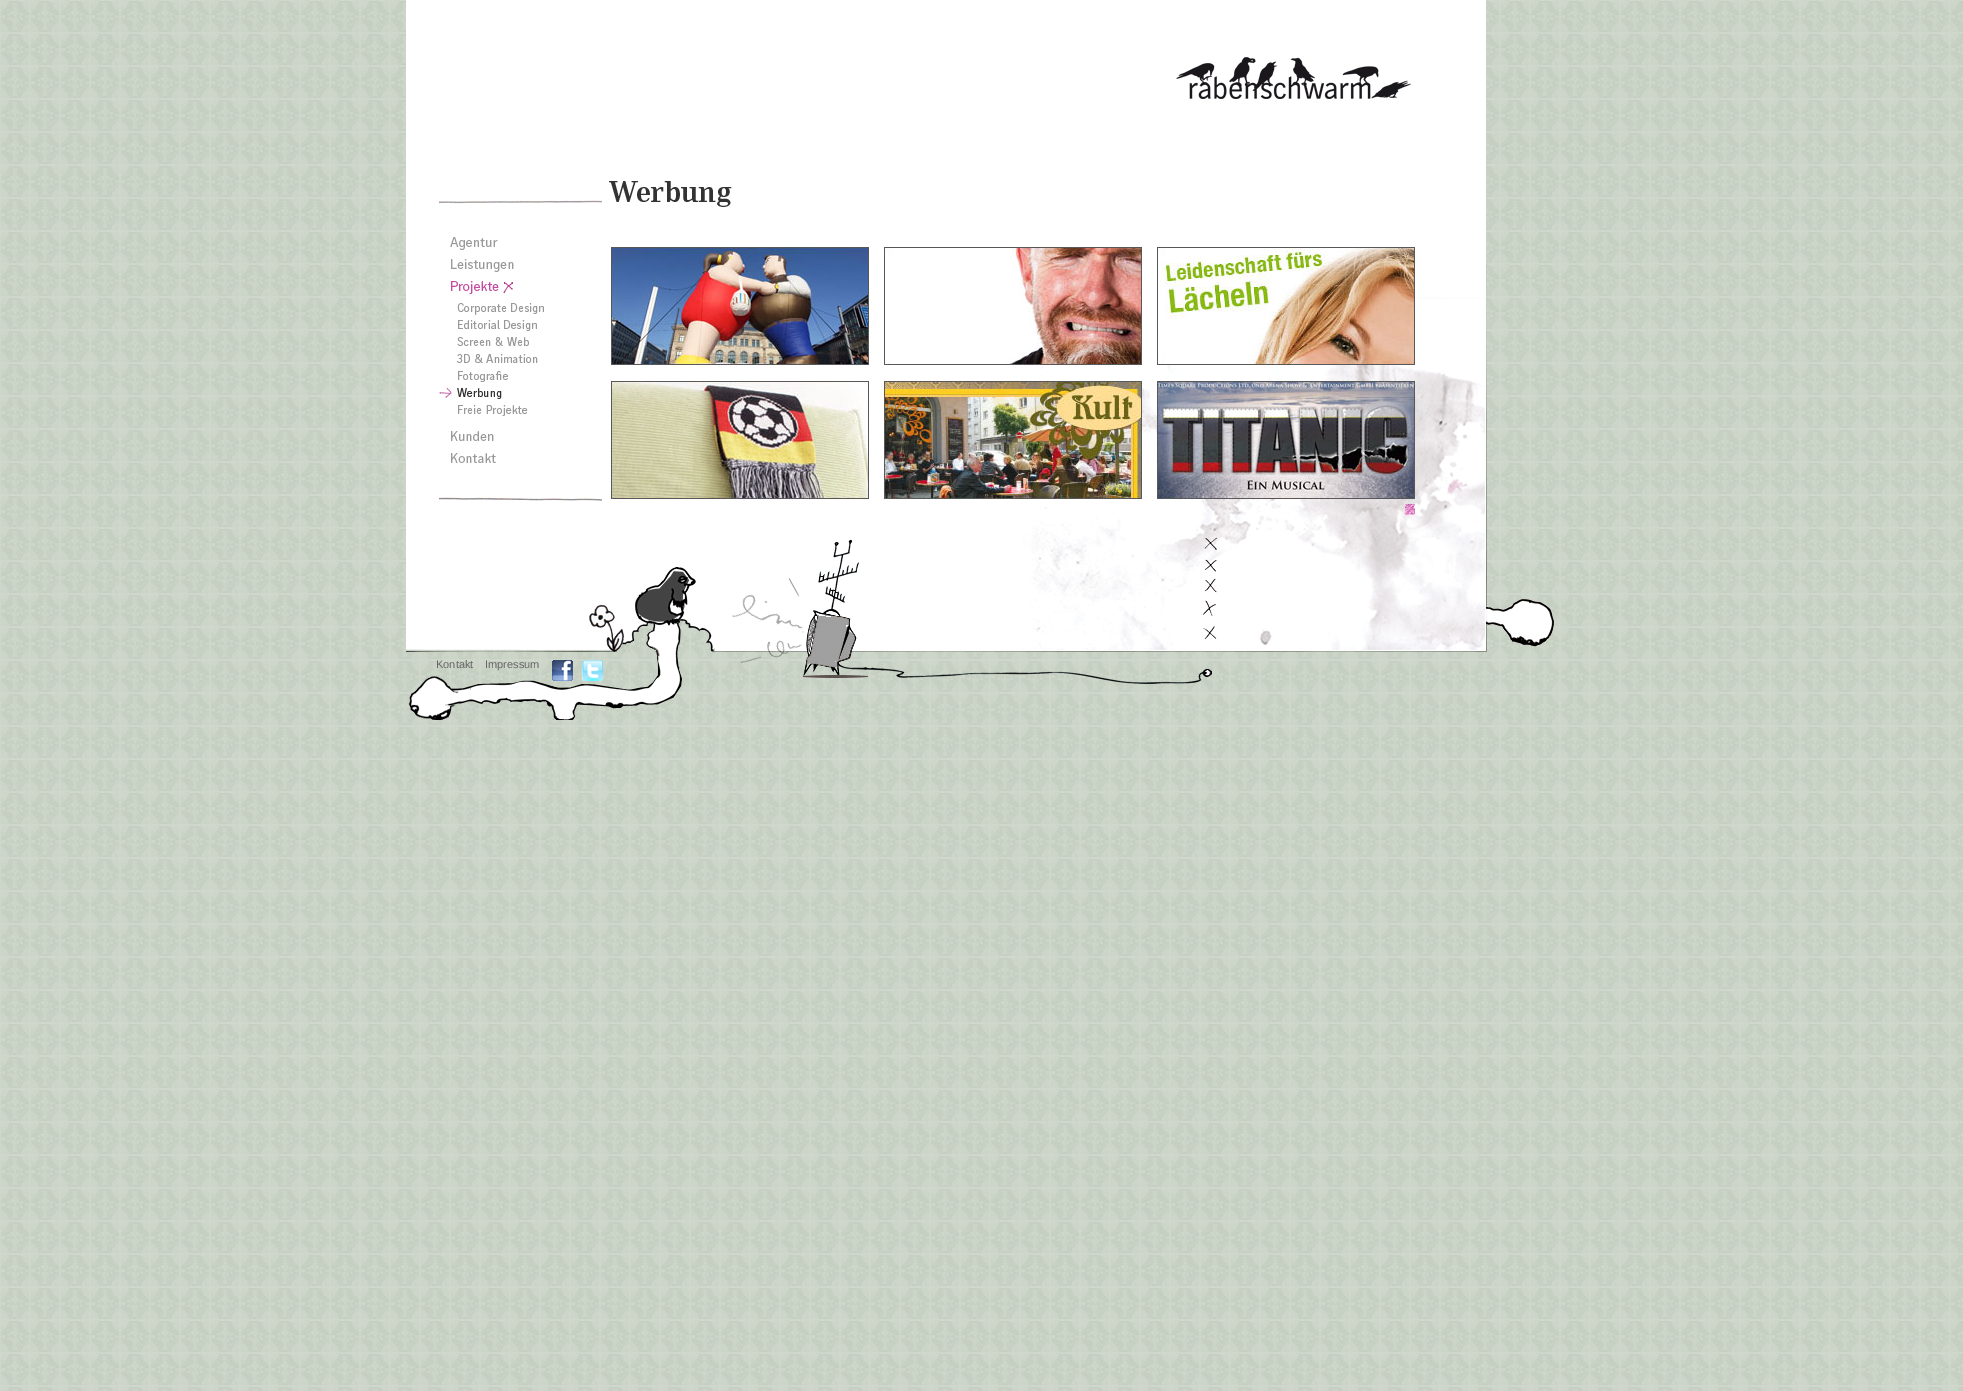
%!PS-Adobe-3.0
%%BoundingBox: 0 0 1963 1391
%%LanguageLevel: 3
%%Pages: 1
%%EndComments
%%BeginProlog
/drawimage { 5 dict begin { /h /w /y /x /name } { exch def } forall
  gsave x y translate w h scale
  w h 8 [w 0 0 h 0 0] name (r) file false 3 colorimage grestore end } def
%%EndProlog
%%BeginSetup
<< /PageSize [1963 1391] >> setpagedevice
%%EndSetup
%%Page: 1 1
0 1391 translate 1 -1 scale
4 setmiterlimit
1 setgray
0 0 1963 1391 rectfill
(images/1.raw) 0 0 1963 1391 drawimage
(images/2.raw) 406 0 1148 720 drawimage
(images/3.raw) 1176 57 235 42 drawimage
(images/4.raw) 450 237 48 13 drawimage
(images/5.raw) 451 259 63 13 drawimage
(images/6.raw) 451 281 62 13 drawimage
(images/7.raw) 457 303 87 12 drawimage
(images/8.raw) 458 320 79 11 drawimage
(images/9.raw) 457 337 72 9 drawimage
(images/10.raw) 456 354 82 9 drawimage
(images/11.raw) 458 371 50 11 drawimage
(images/12.raw) 439 388 63 11 drawimage
(images/13.raw) 458 405 70 11 drawimage
(images/14.raw) 451 431 43 10 drawimage
(images/15.raw) 451 453 45 10 drawimage
(images/16.raw) 609 181 123 26 drawimage
(images/17.raw) 611 247 258 118 drawimage
(images/18.raw) 884 247 258 118 drawimage
(images/19.raw) 1157 247 258 118 drawimage
(images/20.raw) 611 381 258 118 drawimage
(images/21.raw) 884 381 258 118 drawimage
(images/22.raw) 1157 381 258 118 drawimage
(images/23.raw) 1405 504 10 11 drawimage
(images/24.raw) 552 660 21 21 drawimage
(images/25.raw) 582 660 21 21 drawimage
/LiberationSans-Regular [11 0 0 -11 0 0] selectfont
0.4 setgray
436 668 moveto (Kontakt) show
485 668 moveto (Impressum) show
showpage
%%EOF
